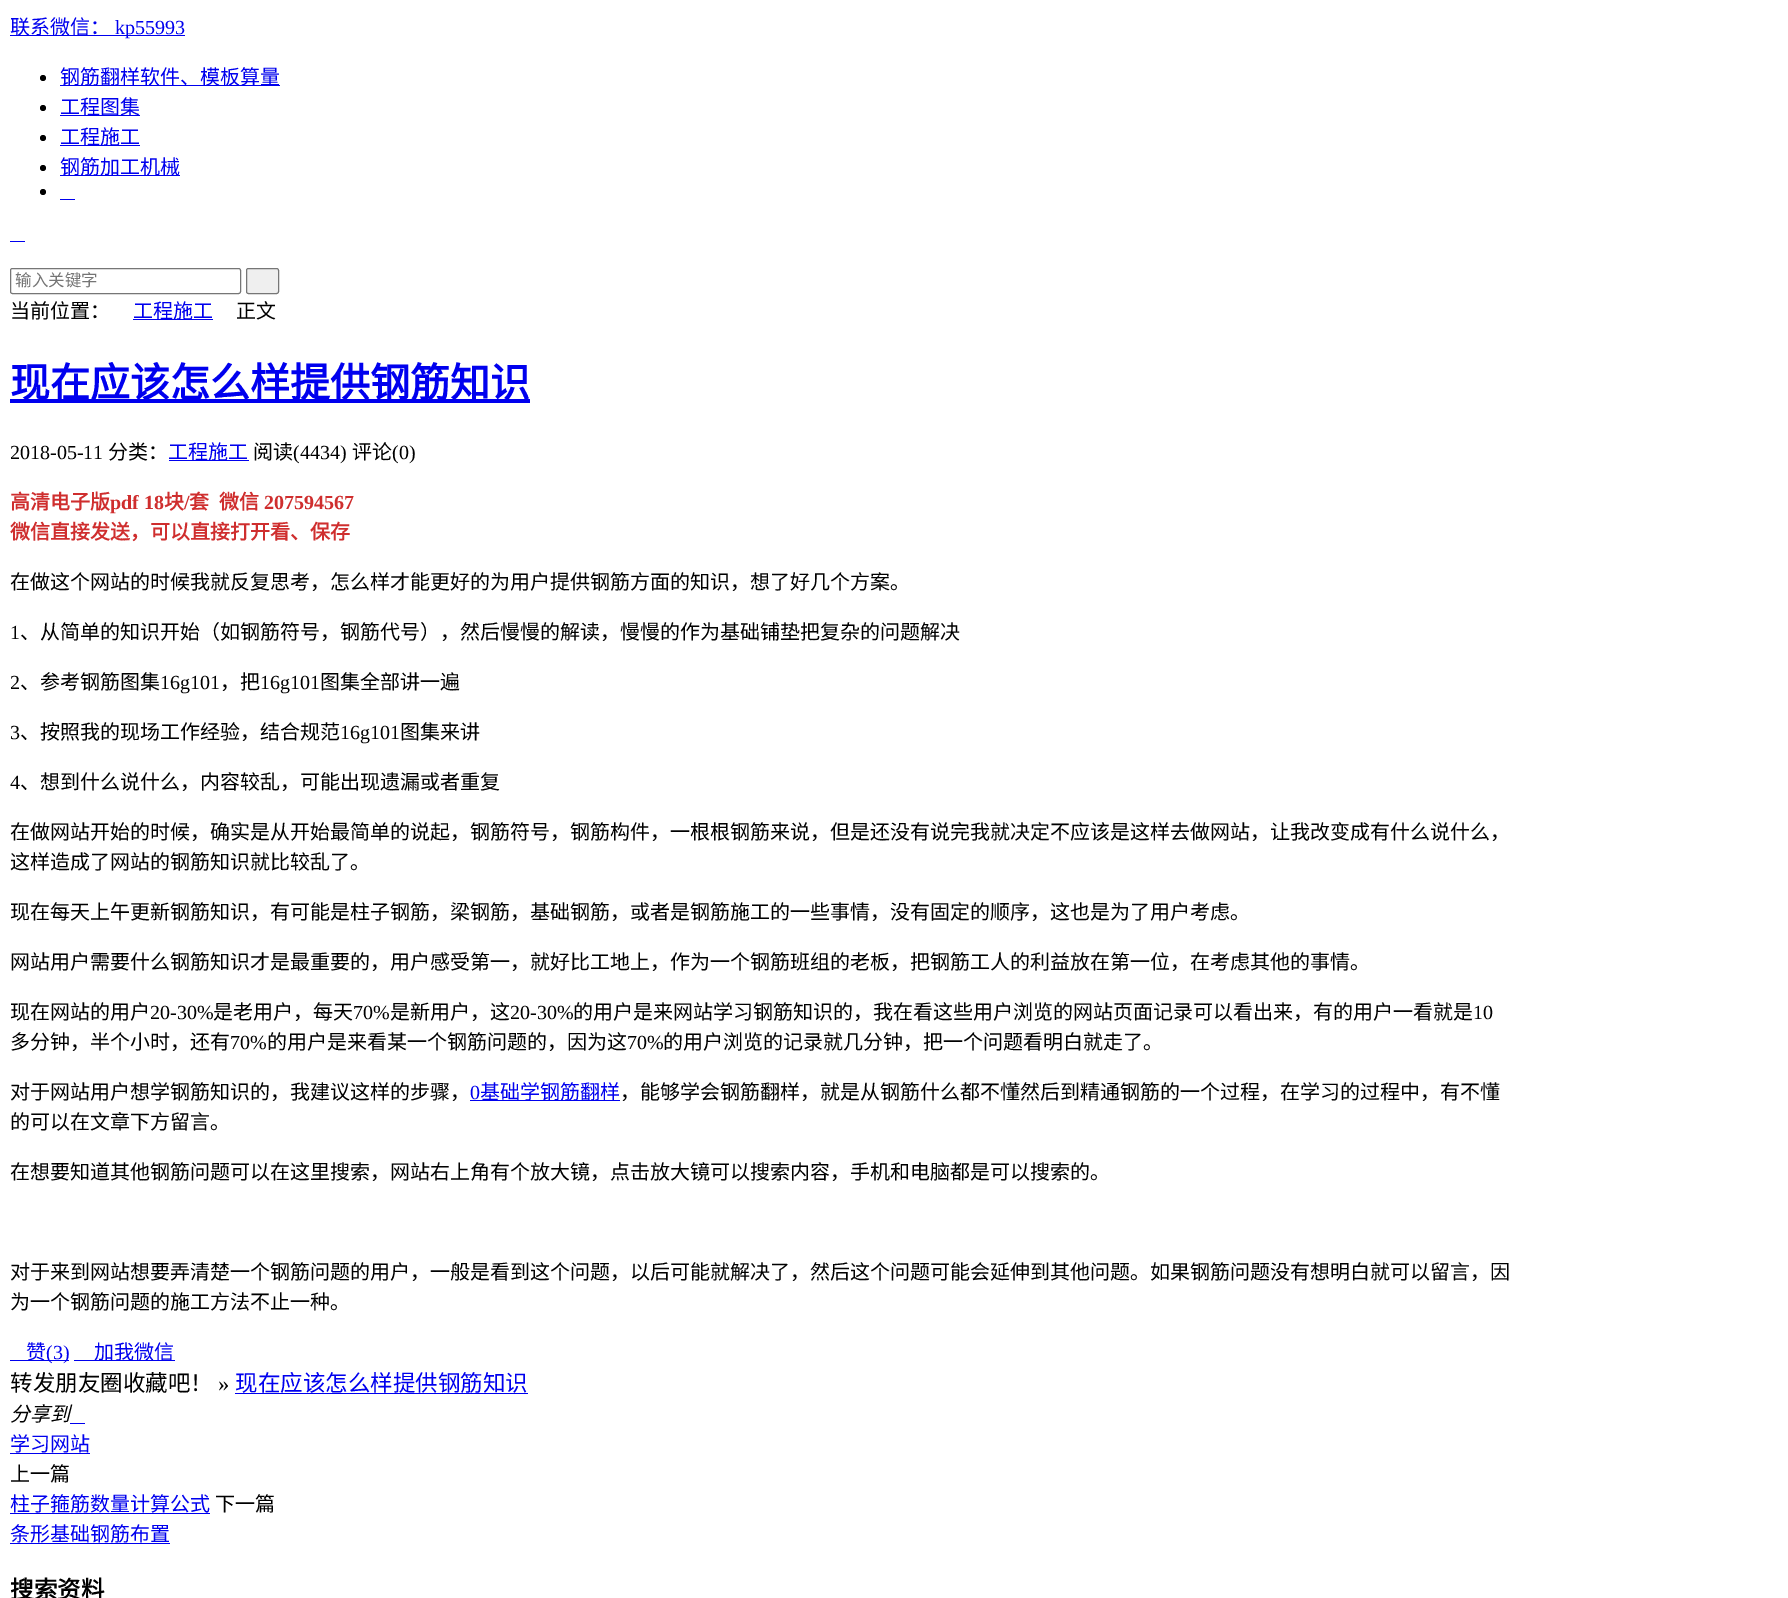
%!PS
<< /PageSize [1788 1598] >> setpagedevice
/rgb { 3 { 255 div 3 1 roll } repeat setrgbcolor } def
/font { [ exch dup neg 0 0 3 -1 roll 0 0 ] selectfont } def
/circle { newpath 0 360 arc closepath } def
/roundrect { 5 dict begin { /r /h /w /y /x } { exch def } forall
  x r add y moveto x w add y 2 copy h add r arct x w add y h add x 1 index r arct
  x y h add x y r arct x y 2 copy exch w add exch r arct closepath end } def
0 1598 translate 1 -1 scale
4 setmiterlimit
255 255 255 rgb
0 0 1788 1598 rectfill
0 0 238 rgb
10 35 175 1 rectfill
0 0 0 rgb
43 78 3 circle fill
0 0 238 rgb
60 85 220 1 rectfill
0 0 0 rgb
43 108 3 circle fill
0 0 238 rgb
60 115 80 1 rectfill
0 0 0 rgb
43 138 3 circle fill
0 0 238 rgb
60 145 80 1 rectfill
0 0 0 rgb
43 168 3 circle fill
0 0 238 rgb
60 175 120 1 rectfill
0 0 0 rgb
43 192 3 circle fill
0 0 238 rgb
60 199 15 1 rectfill
10 241 15 1 rectfill
118 118 118 rgb
10.5 268.5 230 25 2 roundrect stroke
239 239 239 rgb
246.5 268.5 32 25 2 roundrect gsave fill grestore
118 118 118 rgb
stroke
[
  [133 319 80 1 0 0 238]
  [10 399 520 4 0 0 238]
  [169 460 80 1 0 0 238]
  [470 1100 150 1 0 0 238]
  [10 1360 59 1 0 0 238]
  [74 1360 101 1 0 0 238]
  [235 1393 293 1 0 0 238]
  [70 1423 15 1 0 0 238]
  [10 1453 80 1 0 0 238]
  [10 1513 200 1 0 0 238]
  [10 1543 160 1 0 0 238]
] { aload pop rgb rectfill } forall
/NotoSansCJKSC-Regular 20 font
10 34 moveto (联系微信：) show
/LiberationSerif-Regular 20 font
115 34 moveto (kp55993) show
/NotoSansCJKSC-Regular 20 font
[
  [(钢筋翻样软件、模板算量) 60 84]
  [(工程图集) 60 114]
  [(工程施工) 60 144]
  [(钢筋加工机械) 60 174]
] { aload pop moveto show } forall
/NotoSansCJKSC-Regular 16.5 font
117 117 117 rgb
15 286 moveto (输入关键字) show
/NotoSansCJKSC-Regular 20 font
0 0 0 rgb
10 318 moveto (当前位置：) show
0 0 238 rgb
133 318 moveto (工程施工) show
0 0 0 rgb
236 318 moveto (正文) show
/NotoSansCJKSC-Bold 40 font
0 0 238 rgb
10 397 moveto (现在应该怎么样提供钢筋知识) show
/LiberationSerif-Regular 20 font
0 0 0 rgb
10 459 moveto (2018-05-11) show
/NotoSansCJKSC-Regular 20 font
108 459 moveto (分类：) show
0 0 238 rgb
168 459 moveto (工程施工) show
0 0 0 rgb
253 459 moveto (阅读) show
/LiberationSerif-Regular 20 font
293 459 moveto (\(4434\)) show
/NotoSansCJKSC-Regular 20 font
352 459 moveto (评论) show
/LiberationSerif-Regular 20 font
392 459 moveto (\(0\)) show
/NotoSansCJKSC-Bold 20 font
207 46 46 rgb
10 509 moveto (高清电子版) show
/LiberationSerif-Bold 20 font
110 509 moveto (pdf 18) show
/NotoSansCJKSC-Bold 20 font
164 509 moveto (块) show
/LiberationSerif-Bold 20 font
184 509 moveto (/) show
/NotoSansCJKSC-Bold 20 font
189 509 moveto (套) show
219 509 moveto (微信) show
/LiberationSerif-Bold 20 font
264 509 moveto (207594567) show
/NotoSansCJKSC-Bold 20 font
10 539 moveto (微信直接发送，可以直接打开看、保存) show
/NotoSansCJKSC-Regular 20 font
0 0 0 rgb
10 589 moveto (在做这个网站的时候我就反复思考，怎么样才能更好的为用户提供钢筋方面的知识，想了好几个方案。) show
/LiberationSerif-Regular 20 font
10 639 moveto (1) show
/NotoSansCJKSC-Regular 20 font
20 639 moveto (、从简单的知识开始（如钢筋符号，钢筋代号），然后慢慢的解读，慢慢的作为基础铺垫把复杂的问题解决) show
/LiberationSerif-Regular 20 font
10 689 moveto (2) show
/NotoSansCJKSC-Regular 20 font
20 689 moveto (、参考钢筋图集) show
/LiberationSerif-Regular 20 font
160 689 moveto (16g101) show
/NotoSansCJKSC-Regular 20 font
220 689 moveto (，把) show
/LiberationSerif-Regular 20 font
260 689 moveto (16g101) show
/NotoSansCJKSC-Regular 20 font
320 689 moveto (图集全部讲一遍) show
/LiberationSerif-Regular 20 font
10 739 moveto (3) show
/NotoSansCJKSC-Regular 20 font
20 739 moveto (、按照我的现场工作经验，结合规范) show
/LiberationSerif-Regular 20 font
340 739 moveto (16g101) show
/NotoSansCJKSC-Regular 20 font
400 739 moveto (图集来讲) show
/LiberationSerif-Regular 20 font
10 789 moveto (4) show
/NotoSansCJKSC-Regular 20 font
[
  [(、想到什么说什么，内容较乱，可能出现遗漏或者重复) 20 789]
  [(在做网站开始的时候，确实是从开始最简单的说起，钢筋符号，钢筋构件，一根根钢筋来说，但是还没有说完我就决定不应该是这样去做网站，让我改变成有什么说什么，) 10 839]
  [(这样造成了网站的钢筋知识就比较乱了。) 10 869]
  [(现在每天上午更新钢筋知识，有可能是柱子钢筋，梁钢筋，基础钢筋，或者是钢筋施工的一些事情，没有固定的顺序，这也是为了用户考虑。) 10 919]
  [(网站用户需要什么钢筋知识才是最重要的，用户感受第一，就好比工地上，作为一个钢筋班组的老板，把钢筋工人的利益放在第一位，在考虑其他的事情。) 10 969]
  [(现在网站的用户) 10 1019]
] { aload pop moveto show } forall
/LiberationSerif-Regular 20 font
150 1019 moveto (20-30%) show
/NotoSansCJKSC-Regular 20 font
213 1019 moveto (是老用户，每天) show
/LiberationSerif-Regular 20 font
353 1019 moveto (70%) show
/NotoSansCJKSC-Regular 20 font
390 1019 moveto (是新用户，这) show
/LiberationSerif-Regular 20 font
510 1019 moveto (20-30%) show
/NotoSansCJKSC-Regular 20 font
573 1019 moveto (的用户是来网站学习钢筋知识的，我在看这些用户浏览的网站页面记录可以看出来，有的用户一看就是) show
/LiberationSerif-Regular 20 font
1473 1019 moveto (10) show
/NotoSansCJKSC-Regular 20 font
10 1049 moveto (多分钟，半个小时，还有) show
/LiberationSerif-Regular 20 font
230 1049 moveto (70%) show
/NotoSansCJKSC-Regular 20 font
267 1049 moveto (的用户是来看某一个钢筋问题的，因为这) show
/LiberationSerif-Regular 20 font
627 1049 moveto (70%) show
/NotoSansCJKSC-Regular 20 font
663 1049 moveto (的用户浏览的记录就几分钟，把一个问题看明白就走了。) show
10 1099 moveto (对于网站用户想学钢筋知识的，我建议这样的步骤，) show
/LiberationSerif-Regular 20 font
0 0 238 rgb
470 1099 moveto (0) show
/NotoSansCJKSC-Regular 20 font
480 1099 moveto (基础学钢筋翻样) show
0 0 0 rgb
[
  [(，能够学会钢筋翻样，就是从钢筋什么都不懂然后到精通钢筋的一个过程，在学习的过程中，有不懂) 620 1099]
  [(的可以在文章下方留言。) 10 1129]
  [(在想要知道其他钢筋问题可以在这里搜索，网站右上角有个放大镜，点击放大镜可以搜索内容，手机和电脑都是可以搜索的。) 10 1179]
  [(对于来到网站想要弄清楚一个钢筋问题的用户，一般是看到这个问题，以后可能就解决了，然后这个问题可能会延伸到其他问题。如果钢筋问题没有想明白就可以留言，因) 10 1279]
  [(为一个钢筋问题的施工方法不止一种。) 10 1309]
] { aload pop moveto show } forall
0 0 238 rgb
26 1359 moveto (赞) show
/LiberationSerif-Regular 20 font
46 1359 moveto (\(3\)) show
/NotoSansCJKSC-Regular 20 font
94 1359 moveto (加我微信) show
/NotoSansCJKSC-Regular 22.5 font
0 0 0 rgb
10 1391 moveto (转发朋友圈收藏吧！) show
/LiberationSerif-Regular 22.5 font
218 1391 moveto (») show
/NotoSansCJKSC-Regular 22.5 font
0 0 238 rgb
235 1391 moveto (现在应该怎么样提供钢筋知识) show
/NotoSansCJKSC-Italic 20 font
0 0 0 rgb
10 1421 moveto (分享到) show
/NotoSansCJKSC-Regular 20 font
0 0 238 rgb
10 1451 moveto (学习网站) show
0 0 0 rgb
10 1481 moveto (上一篇) show
0 0 238 rgb
10 1511 moveto (柱子箍筋数量计算公式) show
0 0 0 rgb
215 1511 moveto (下一篇) show
0 0 238 rgb
10 1541 moveto (条形基础钢筋布置) show
/NotoSansCJKSC-Bold 23.5 font
0 0 0 rgb
10 1598 moveto (搜索资料) show
showpage
